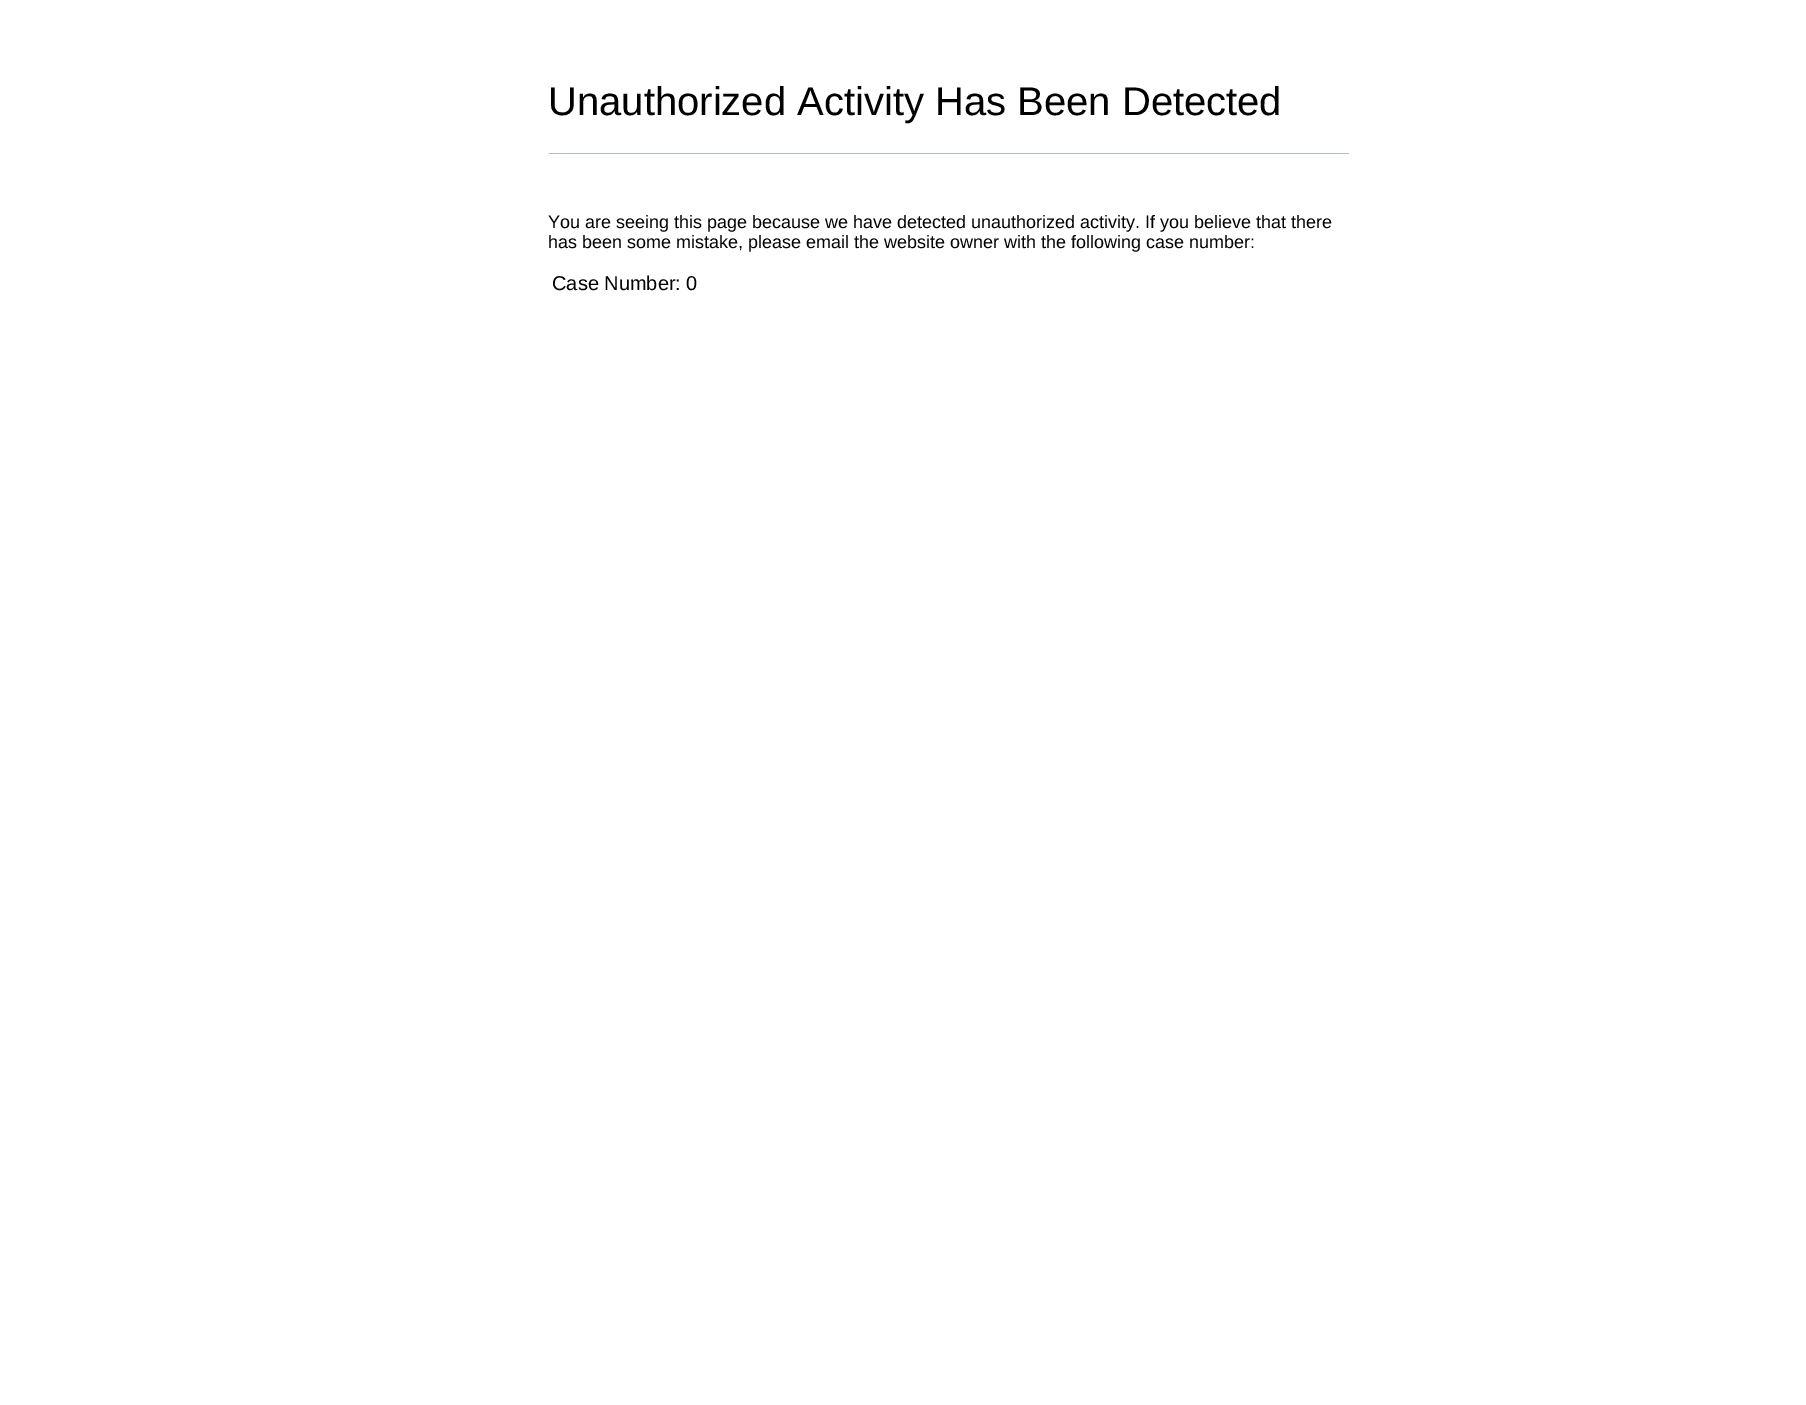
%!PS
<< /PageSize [1806 1405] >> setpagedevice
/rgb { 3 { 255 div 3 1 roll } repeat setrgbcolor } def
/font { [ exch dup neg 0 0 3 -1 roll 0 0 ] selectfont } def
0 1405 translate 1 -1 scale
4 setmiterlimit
255 255 255 rgb
0 0 1806 1405 rectfill
182 188 198 rgb
549 153 800 1 rectfill
/LiberationSans-Regular 40 font
0 0 0 rgb
548 115 moveto (Unauthorized Activity Has Been Detected) show
/LiberationSans-Regular 18 font
548 228 moveto (You are seeing this page because we have detected unauthorized activity. If you believe that there) show
548 248 moveto (has been some mistake, please email the website owner with the following case number:) show
/LiberationSans-Regular 20 font
552 290 moveto (Case Number:) show
686 290 moveto (0) show
showpage
